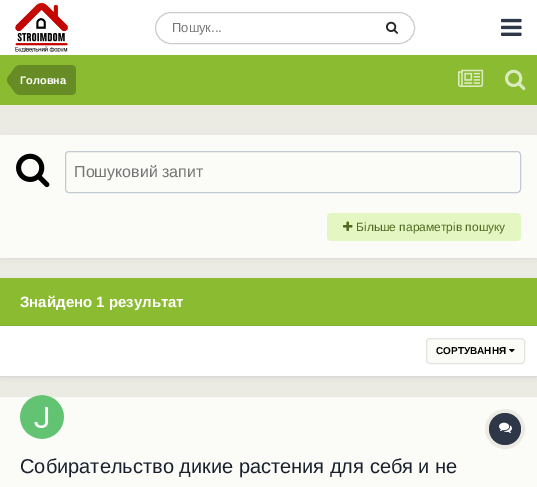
%!PS
<< /PageSize [537 487] /PageUsesTransparency true >> setpagedevice
/rgb { 3 { 255 div 3 1 roll } repeat setrgbcolor } def
/font { [ exch dup neg 0 0 3 -1 roll 0 0 ] selectfont } def
/alpha { dup .setfillconstantalpha .setstrokeconstantalpha } def
/circle { newpath 0 360 arc closepath } def
/roundrect { 5 dict begin { /r /h /w /y /x } { exch def } forall
  x r add y moveto x w add y 2 copy h add r arct x w add y h add x 1 index r arct
  x y h add x y r arct x y 2 copy exch w add exch r arct closepath end } def
/shadow { 12 dict begin { /a /b /q /h /w /y /x } { exch def } forall gsave /was 0 def
  9 -2 -9 { dup b mul 4 div /e exch def 1 sub .425 mul 2.718 exch exp 1 add a .99 .min exch div /now exch def
    1 1 now sub 1 was sub div sub alpha /was now def
    w h .min e 2 mul add 0 gt { x e sub y e sub w e 2 mul add h e 2 mul add
      q e add b .6 mul add w h .min 2 div e add .min 0 .max roundrect fill } if } for grestore end } def
/picture { 5 dict begin { /h /w /y /x /name } { exch def } forall
  gsave x y translate w h scale
  w h 8 [w 0 0 h 0 0] name (r) file false 3 colorimage grestore end } def
0 .pushpdf14devicefilter
0 487 translate 1 -1 scale
4 setmiterlimit
236 235 227 rgb
0 0 537 487 rectfill
255 255 255 rgb
0 0 537 55 rectfill
(img/1.rgb) 15 3 53 49 picture
204 204 204 rgb
155.5 12.5 259 31 15.5 roundrect stroke
(img/2.rgb) 386 21 12 13 picture
(img/3.rgb) 501 18 21 18 picture
138 187 49 rgb
0 55 537 50 rectfill
104 140 37 rgb
20 65 moveto 71 65 lineto 74 65 76 67 76 70 curveto 76 90 lineto 76 93 74 95 71 95 curveto 20 95 lineto closepath fill
20 80 moveto 20 95 lineto 15.5 95 13.5 90.5 11 87 curveto 9.5 85 7 83 7 80 curveto closepath 20 80 moveto 7 80 lineto 7 77 9.5 75 11 73 curveto 13.5 69.5 15.5 65 20 65 curveto closepath fill
(img/4.rgb) 458 69 26 18 picture
(img/5.rgb) 505 69 21 22 picture
45 55 72 rgb
1 138 535 121 0 2 0.1 shadow
251 251 248 rgb
0 135 537 123 rectfill
(img/6.rgb) 16 153 34 35 picture
196 202 209 rgb
65.5 151.5 455 41 3.5 roundrect stroke
228 247 194 rgb
327 213 194 28 4 roundrect fill
(img/7.rgb) 343 221 10 10 picture
45 55 72 rgb
1 281 535 97 0 2 0.1 shadow
[
  [0 278 537 47 138 187 49]
  [0 325 537 1 134 178 64]
  [0 326 537 50 255 255 255]
  [0 376 537 1 217 217 217]
] { aload pop rgb rectfill } forall
251 251 248 rgb
426 338 99 26 4 roundrect fill
(img/8.rgb) 509 349 6 4 picture
226 226 223 rgb
426.5 338.5 98 25 3.5 roundrect stroke
251 251 248 rgb
0 397 537 90 rectfill
42 417 22 circle fill
(img/9.rgb) 20 395 44 44 picture
236 235 227 rgb
4 setlinewidth
505 429 18 circle stroke
45 55 72 rgb
505 429 16 circle fill
(img/10.rgb) 499 422 13 11 picture
/LiberationSans-Regular 13 font
117 117 117 rgb
172 32 moveto (Пошук...) show
/LiberationSans-Bold 11 font
255 255 255 rgb
20 84 moveto (Головна) show
/LiberationSans-Regular 16 font
117 117 117 rgb
74 177 moveto (Пошуковий запит) show
/LiberationSans-Regular 12 font
81 106 34 rgb
356 231 moveto (Більше параметрів пошуку) show
/LiberationSans-Bold 15 font
255 255 255 rgb
20 307 moveto (Знайдено 1 результат) show
/LiberationSans-Bold 10 font
0 0 0 rgb
436 354 moveto (СОРТУВАННЯ) show
/LiberationSans-Regular 20 font
26 32 44 rgb
20 473 moveto (Собирательство дикие растения для себя и не) show
.poppdf14devicefilter showpage
